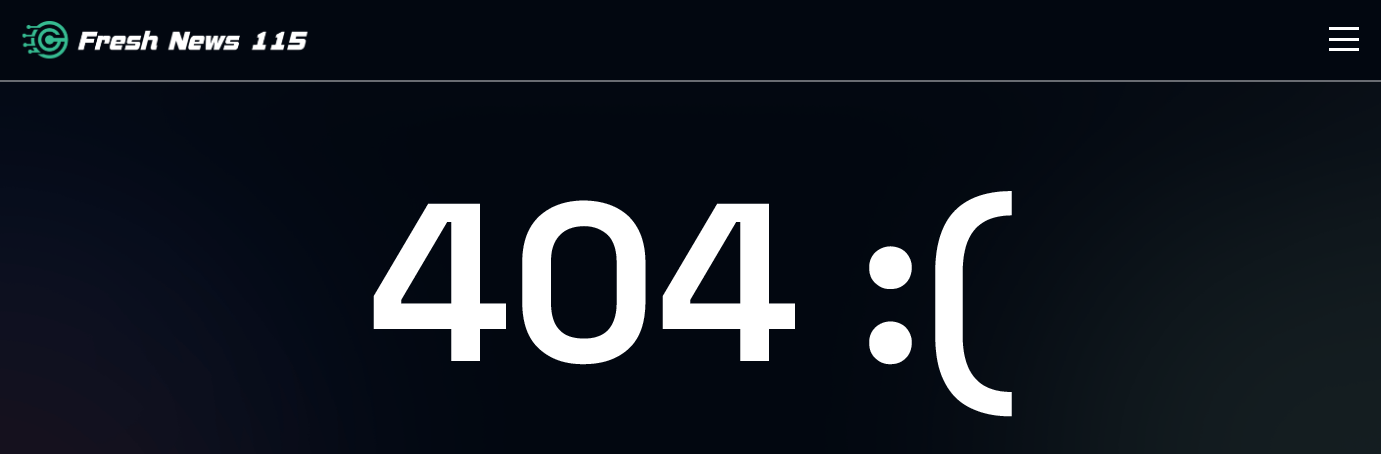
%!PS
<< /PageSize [1381 454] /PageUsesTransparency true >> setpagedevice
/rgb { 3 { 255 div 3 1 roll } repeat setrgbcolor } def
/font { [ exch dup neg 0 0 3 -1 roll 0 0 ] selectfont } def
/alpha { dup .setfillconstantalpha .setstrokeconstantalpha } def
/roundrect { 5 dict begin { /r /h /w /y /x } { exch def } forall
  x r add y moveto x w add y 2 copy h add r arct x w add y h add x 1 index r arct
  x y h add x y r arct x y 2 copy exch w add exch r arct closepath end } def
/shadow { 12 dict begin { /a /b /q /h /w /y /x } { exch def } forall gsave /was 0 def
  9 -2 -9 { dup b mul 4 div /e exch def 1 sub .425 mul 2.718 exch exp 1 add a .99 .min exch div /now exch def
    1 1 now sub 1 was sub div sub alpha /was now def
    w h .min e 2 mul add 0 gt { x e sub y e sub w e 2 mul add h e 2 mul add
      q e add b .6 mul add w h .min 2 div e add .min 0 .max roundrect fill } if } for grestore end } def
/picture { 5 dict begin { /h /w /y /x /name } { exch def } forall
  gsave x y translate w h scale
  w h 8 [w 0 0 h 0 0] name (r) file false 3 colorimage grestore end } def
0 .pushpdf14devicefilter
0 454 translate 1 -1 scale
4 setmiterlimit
255 255 255 rgb
0 0 1381 454 rectfill
(img/1.rgb) 0 82 1381 372 picture
0 0 0 rgb
0 5 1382 81 0 5 0.1 shadow
2 7 16 rgb
0 0 1381 80 rectfill
105 108 114 rgb
0 80 1381 2 rectfill
(img/2.rgb) 22 21 286 38 picture
[
  [1329 38 30 3 255 255 255]
  [1329 27 30 3 255 255 255]
  [1329 48 30 3 255 255 255]
] { aload pop rgb rectfill } forall
/SpaceGrotesk-Bold 225 font
368 361 moveto (404 :\() show
.poppdf14devicefilter showpage
